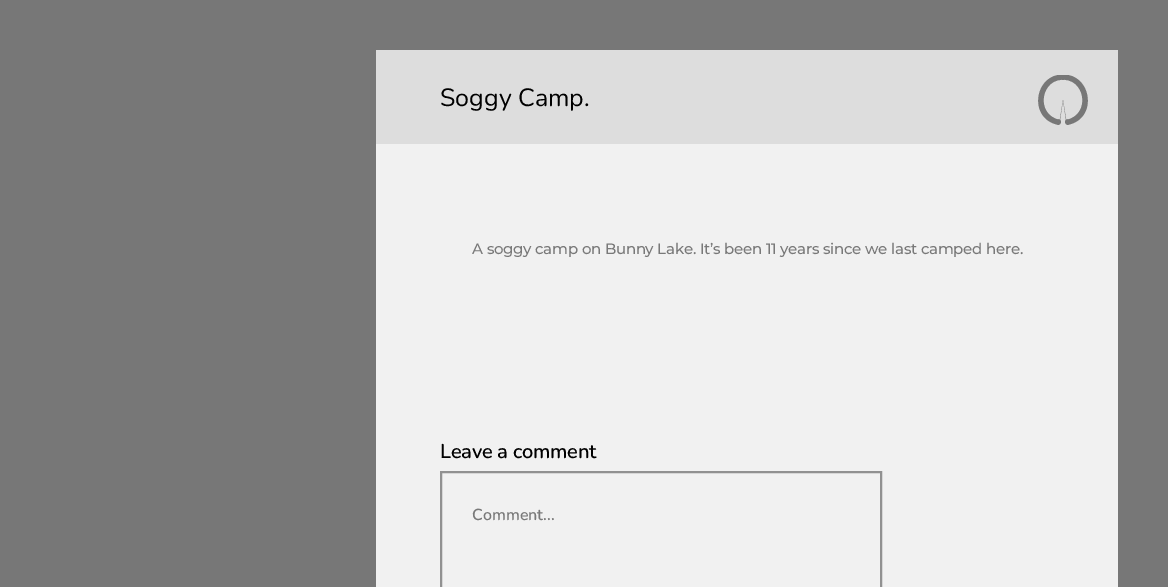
%!PS
<< /PageSize [1168 587] >> setpagedevice
/rgb { 3 { 255 div 3 1 roll } repeat setrgbcolor } def
/font { [ exch dup neg 0 0 3 -1 roll 0 0 ] selectfont } def
0 587 translate 1 -1 scale
4 setmiterlimit
119 119 119 rgb
0 0 1168 587 rectfill
241 241 241 rgb
376 144 742 443 rectfill
221 221 221 rgb
376 50 742 94 rectfill
145 145 145 rgb
2 setlinewidth
441 472 440 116 rectstroke
gsave
1038 75 25 50 rectclip
119 119 119 rgb
1067 75 moveto 1059 125 lineto 1026 119 1035 70 1067 75 curveto closepath 1066 80 moveto 1060 120 lineto 1034 115 1041 76 1066 80 curveto closepath eofill
grestore
119 119 119 rgb
1059 119.5 moveto 1062 120 1061.5 125 1058 124.5 curveto 1055 124 1056 119 1059 119.5 curveto closepath fill
gsave
1063 75 25 50 rectclip
1059 75 moveto 1091 70 1100 119 1067 125 curveto closepath 1060 80 moveto 1085 76 1092 115 1066 120 curveto closepath eofill
grestore
1067 119.5 moveto 1070 119 1071 124 1068 124.5 curveto 1064.5 125 1064 120 1067 119.5 curveto closepath fill
/Nunito-Regular 25 font
0 0 0 rgb
440 106 moveto (Soggy Camp.) show
/Montserrat-Thin 15 font
121 121 121 rgb
472 254 moveto -0.25 0 (A soggy camp on Bunny Lake. It’s been 11 years since we last camped here.) ashow
/Nunito-SemiBold 20 font
0 0 0 rgb
440 458 moveto -0.25 0 (Leave a comment) ashow
/Nunito-SemiBold 16 font
121 121 121 rgb
472 520 moveto (Comment...) show
showpage
